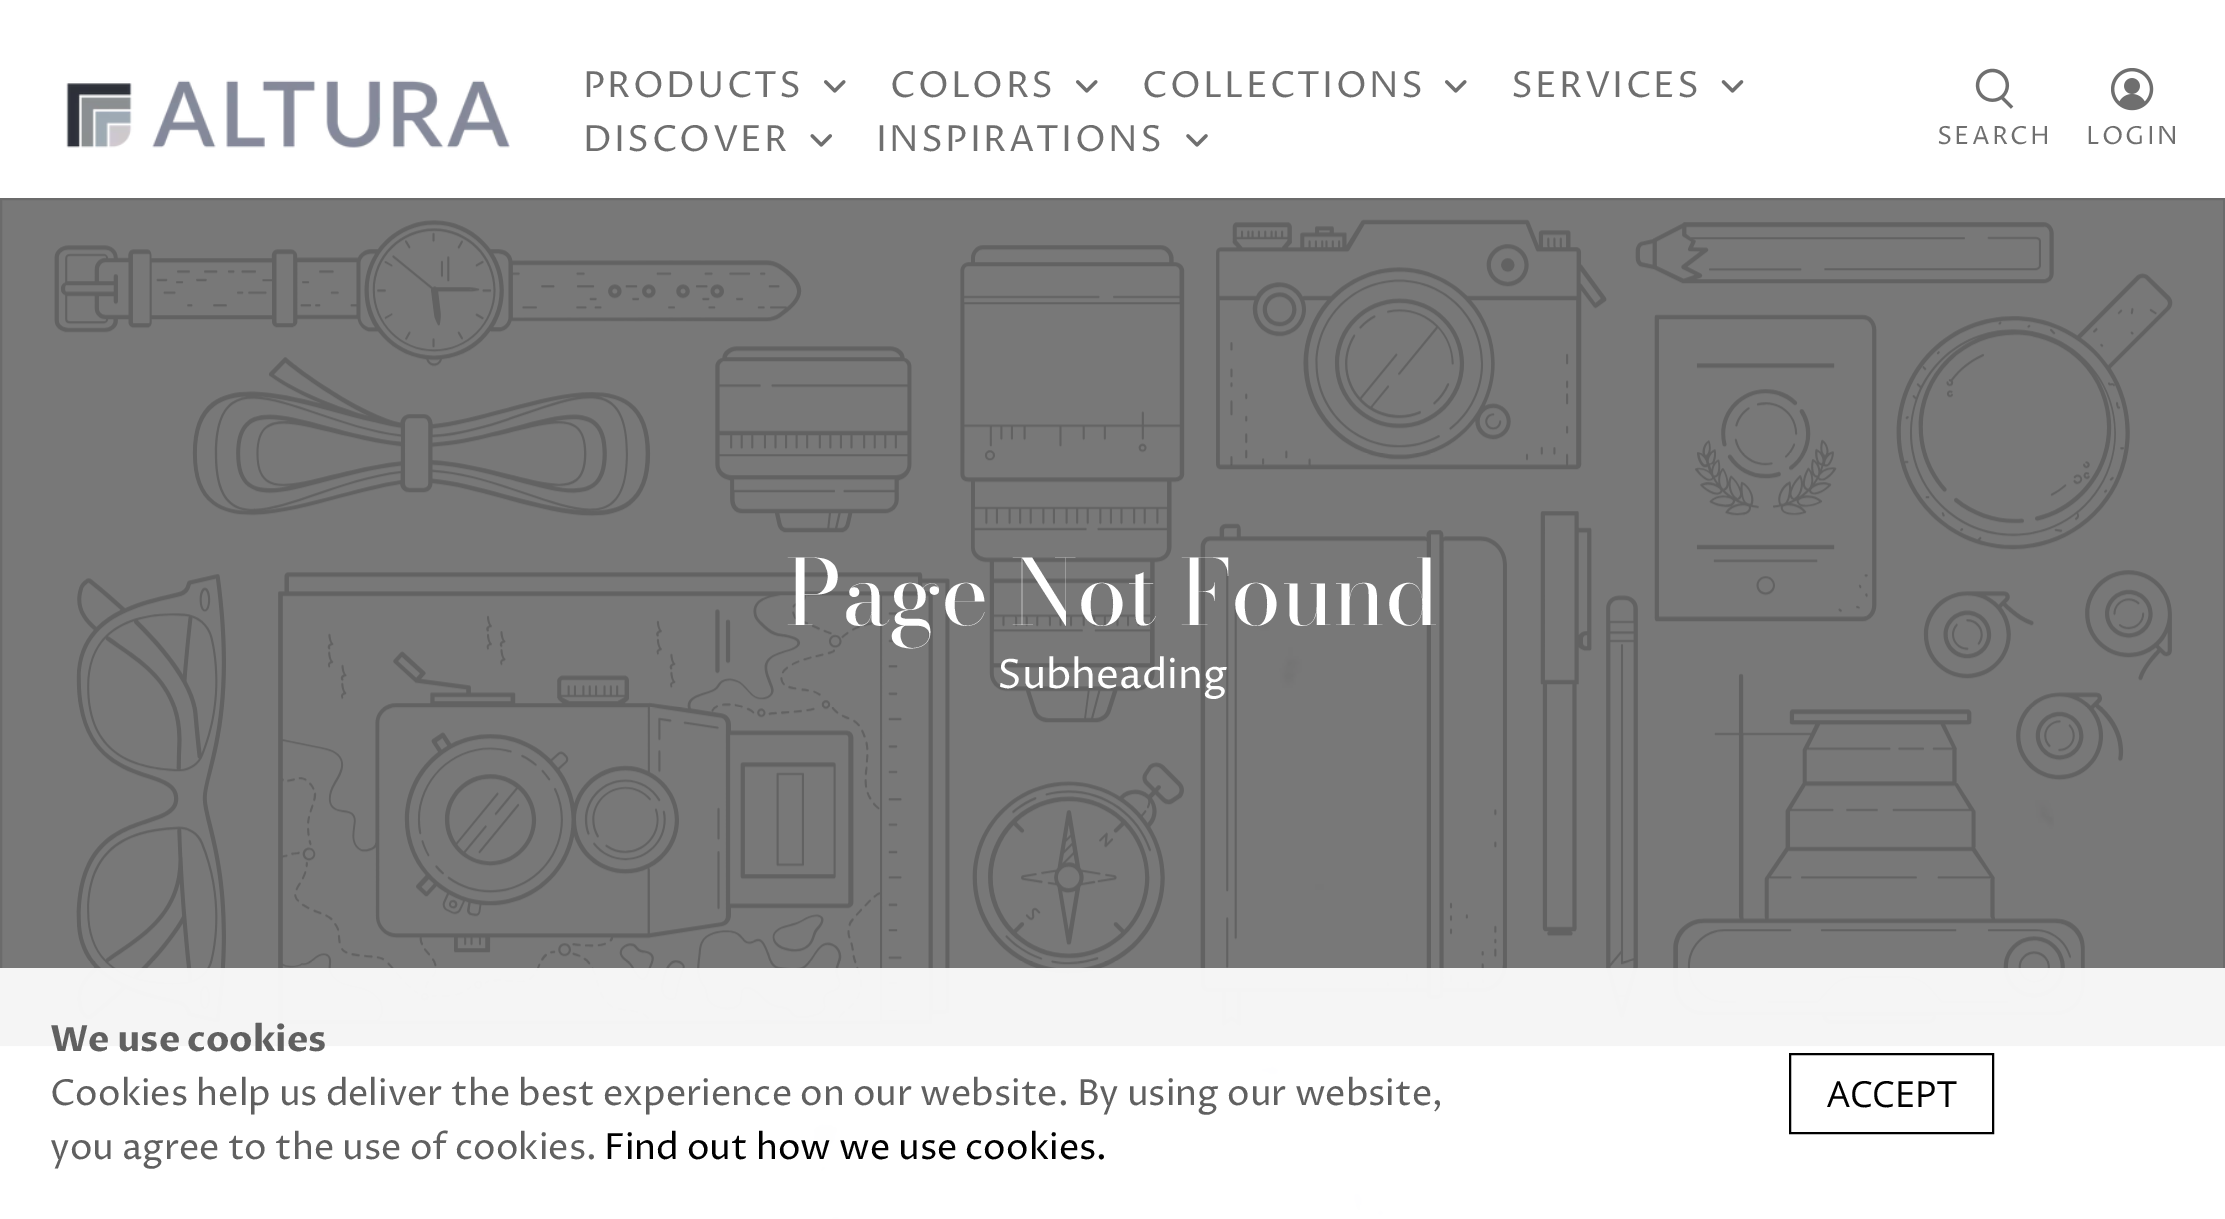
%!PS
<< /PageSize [2225 1219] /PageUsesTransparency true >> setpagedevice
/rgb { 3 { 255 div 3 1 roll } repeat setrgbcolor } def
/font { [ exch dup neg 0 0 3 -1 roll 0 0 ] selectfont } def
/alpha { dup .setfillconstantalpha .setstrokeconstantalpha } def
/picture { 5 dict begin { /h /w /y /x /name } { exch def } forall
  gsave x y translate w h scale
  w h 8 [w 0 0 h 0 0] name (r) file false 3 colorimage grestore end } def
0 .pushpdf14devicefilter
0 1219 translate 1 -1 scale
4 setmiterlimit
255 255 255 rgb
0 0 2225 1219 rectfill
(img/1.rgb) 744 624 1310 595 picture
(img/2.rgb) 66 80 444 68 picture
(img/3.rgb) 824 80 22 13 picture
(img/3.rgb) 1076 80 22 13 picture
(img/3.rgb) 1445 80 22 13 picture
(img/4.rgb) 1721 80 23 13 picture
(img/5.rgb) 810 134 22 13 picture
(img/6.rgb) 1186 134 22 13 picture
(img/7.rgb) 1975 68 39 41 picture
(img/8.rgb) 2111 68 43 43 picture
0.1 alpha
111 111 111 rgb
1 199 moveto 2224 199 lineto 2224 1045 lineto 1 1045 lineto closepath fill
1 alpha
215 215 215 rgb
2 setlinewidth
1 199 moveto 2224 199 lineto 2224 1045 lineto 1 1045 lineto closepath stroke
(img/9.rgb) 54 219 2119 808 picture
0.5 alpha
0 0 0 rgb
0 198 2225 848 rectfill
0.93 alpha
255 255 255 rgb
0 968 2225 251 rectfill
1 alpha
0 0 0 rgb
1790 1054 203 79 rectstroke
/ProzaLibre-Regular 36 font
111 111 111 rgb
583 97 moveto 2.25 0 (PRODUCTS) ashow
890 97 moveto 2.25 0 (COLORS) ashow
1142 97 moveto 2.25 0 (COLLECTIONS) ashow
1511 97 moveto 2.25 0 (SERVICES) ashow
583 151 moveto 2.25 0 (DISCOVER) ashow
876 151 moveto 2.25 0 (INSPIRATIONS) ashow
/ProzaLibre-Regular 25 font
1937 144 moveto 2.25 0 (SEARCH) ashow
2086 144 moveto 2.25 0 (LOGIN) ashow
/BodoniModa-Regular 90 font
255 255 255 rgb
786 625 moveto (Page Not Found) show
/ProzaLibre-Regular 40.5 font
997 688 moveto (Subheading) show
/ProzaLibre-Bold 36 font
96 96 96 rgb
50 1051 moveto (We use cookies) show
/ProzaLibre-Regular 36 font
50 1105 moveto (Cookies help us deliver the best experience on our website. By using our website,) show
50 1159 moveto (you agree to the use of cookies.) show
0 0 0 rgb
604 1159 moveto (Find out how we use cookies.) show
/OpenSans-Regular 36 font
1827 1107 moveto (ACCEPT) show
.poppdf14devicefilter showpage
